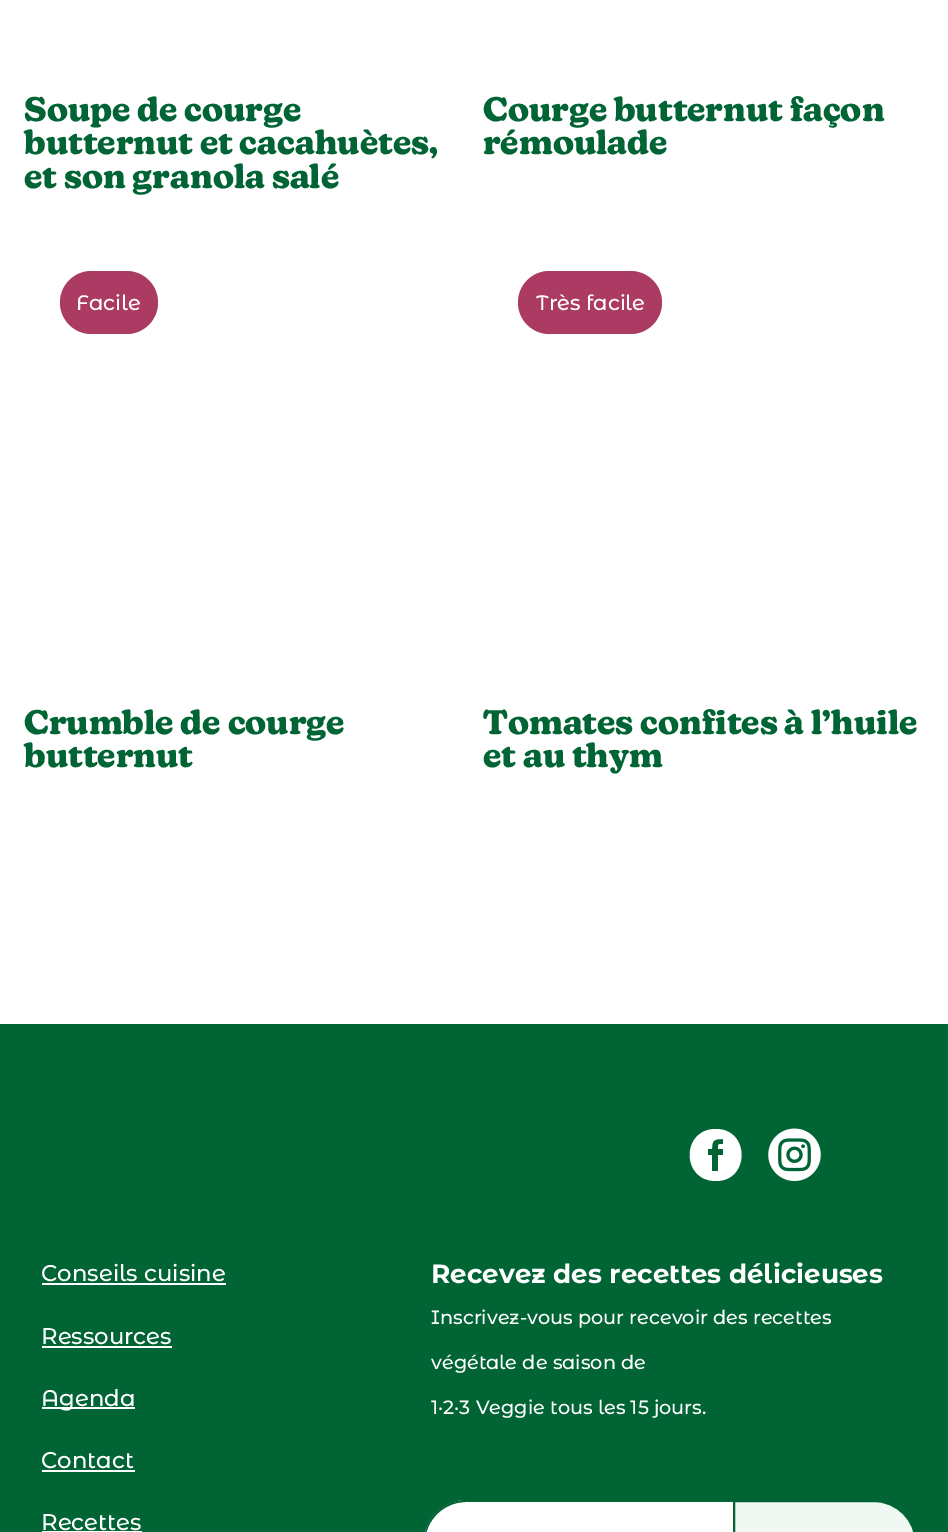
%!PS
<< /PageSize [948 1532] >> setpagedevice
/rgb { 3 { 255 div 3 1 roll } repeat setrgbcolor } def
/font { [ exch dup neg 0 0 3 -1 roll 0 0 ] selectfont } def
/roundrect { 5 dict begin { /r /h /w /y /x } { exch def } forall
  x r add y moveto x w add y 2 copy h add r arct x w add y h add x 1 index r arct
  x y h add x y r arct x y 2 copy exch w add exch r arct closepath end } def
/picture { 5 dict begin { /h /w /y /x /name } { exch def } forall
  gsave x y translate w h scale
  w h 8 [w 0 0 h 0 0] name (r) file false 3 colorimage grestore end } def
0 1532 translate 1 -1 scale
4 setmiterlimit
255 255 255 rgb
0 0 948 1532 rectfill
171 59 99 rgb
60 271 98 63 31.5 roundrect fill
518 271 144 63 31.5 roundrect fill
0 100 53 rgb
0 1024 948 508 rectfill
255 255 255 rgb
716 1129 moveto 681 1129 681 1181 716 1181 curveto 750 1181 750 1129 716 1129 curveto closepath 723 1155 moveto 718 1155 lineto 718 1171 lineto 712 1171 lineto 712 1155 lineto 708 1155 lineto 708 1149 lineto 712 1149 lineto 712 1140 714 1139 723 1139 curveto 723 1144 lineto 718 1144 718 1144 718 1149 curveto 723 1149 lineto closepath fill
(img/1.rgb) 768 1128 53 53 picture
[
  [42 1283 184 2 255 255 255]
  [42 1346 130 2 255 255 255]
  [42 1407 93 2 255 255 255]
  [42 1470 93 2 255 255 255]
  [42 1531 100 1 255 255 255]
] { aload pop rgb rectfill } forall
467 1500 moveto 733 1500 lineto 733 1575 lineto 467 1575 lineto 443.5 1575 424 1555.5 424 1532 curveto 424 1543 lineto 424 1519.5 443.5 1500 467 1500 curveto closepath fill
0 100 53 rgb
466 1500 moveto 733 1500 lineto 733 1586 lineto 466 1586 lineto 443 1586 424 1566 424 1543 curveto 424 1519 443 1500 466 1500 curveto closepath 466 1502 moveto 733 1502 lineto 733 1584 lineto 466 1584 lineto 444 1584 425 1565 425 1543 curveto 425 1520 444 1502 466 1502 curveto closepath eofill
239 248 242 rgb
734 1501 moveto 874 1501 lineto 897 1501 916 1520 916 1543 curveto 916 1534 lineto 916 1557 897 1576 874 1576 curveto 734 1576 lineto closepath gsave fill grestore
0 100 53 rgb
2 setlinewidth
stroke
/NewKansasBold-Bold 33.25 font
[
  [(Soupe de courge) 24 121]
  [(butternut et cacahuètes,) 24 154]
  [(et son granola salé) 24 188]
  [(Courge butternut façon) 483 121]
  [(rémoulade) 483 154]
] { aload pop moveto show } forall
/MontserratAlternates-Medium 21 font
255 255 255 rgb
76 310 moveto (Facile) show
/NewKansasBold-Bold 33.25 font
0 100 53 rgb
24 734 moveto (Crumble de courge) show
24 767 moveto (butternut) show
/MontserratAlternates-Medium 21 font
255 255 255 rgb
536 310 moveto (Très facile) show
/NewKansasBold-Bold 33.25 font
0 100 53 rgb
483 734 moveto (Tomates confites à l’huile) show
483 767 moveto (et au thym) show
/MontserratAlternates-Medium 22.75 font
255 255 255 rgb
[
  [(Conseils cuisine) 41 1281]
  [(Ressources) 41 1344]
  [(Agenda) 41 1406]
  [(Contact) 41 1468]
  [(Recettes) 41 1530]
] { aload pop moveto show } forall
/MontserratAlternates-Bold 26.25 font
431 1283 moveto (Recevez des recettes délicieuses) show
/MontserratAlternates-Medium 19.25 font
[
  [(Inscrivez-vous pour recevoir des recettes) 431 1324]
  [(végétale de saison de) 431 1369]
  [(1·2·3 Veggie tous les 15 jours.) 431 1414]
] { aload pop moveto show } forall
showpage
